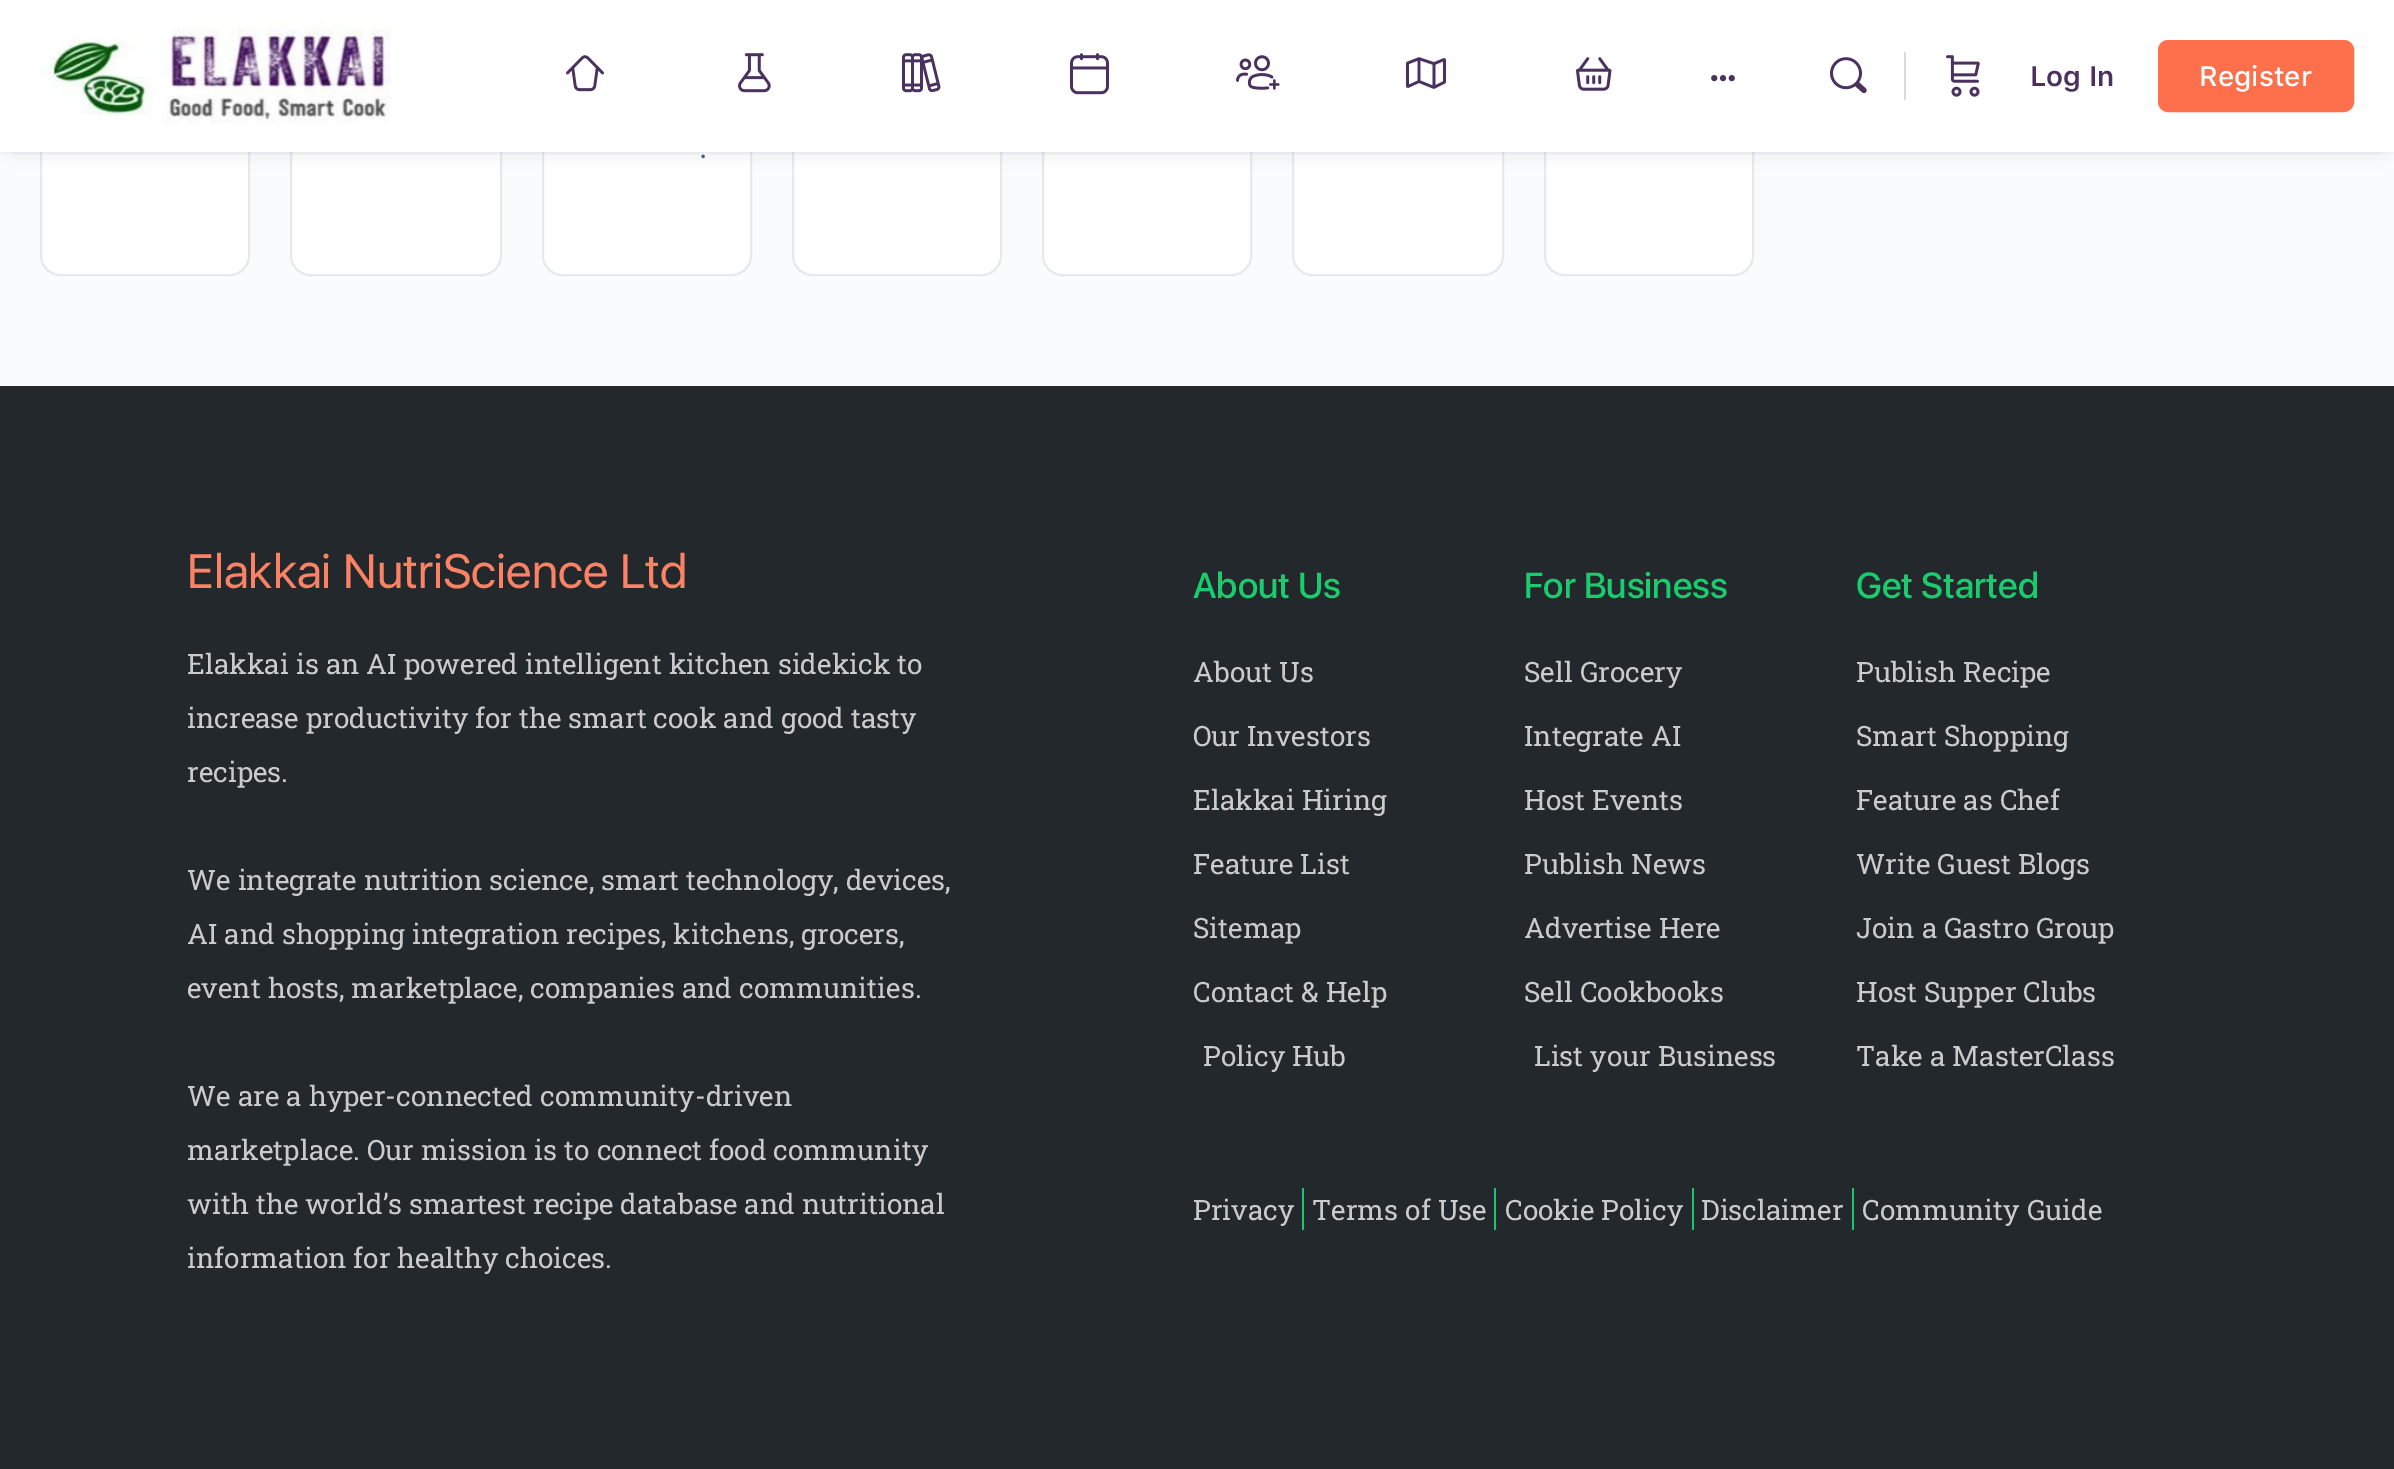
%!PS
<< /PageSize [2394 1469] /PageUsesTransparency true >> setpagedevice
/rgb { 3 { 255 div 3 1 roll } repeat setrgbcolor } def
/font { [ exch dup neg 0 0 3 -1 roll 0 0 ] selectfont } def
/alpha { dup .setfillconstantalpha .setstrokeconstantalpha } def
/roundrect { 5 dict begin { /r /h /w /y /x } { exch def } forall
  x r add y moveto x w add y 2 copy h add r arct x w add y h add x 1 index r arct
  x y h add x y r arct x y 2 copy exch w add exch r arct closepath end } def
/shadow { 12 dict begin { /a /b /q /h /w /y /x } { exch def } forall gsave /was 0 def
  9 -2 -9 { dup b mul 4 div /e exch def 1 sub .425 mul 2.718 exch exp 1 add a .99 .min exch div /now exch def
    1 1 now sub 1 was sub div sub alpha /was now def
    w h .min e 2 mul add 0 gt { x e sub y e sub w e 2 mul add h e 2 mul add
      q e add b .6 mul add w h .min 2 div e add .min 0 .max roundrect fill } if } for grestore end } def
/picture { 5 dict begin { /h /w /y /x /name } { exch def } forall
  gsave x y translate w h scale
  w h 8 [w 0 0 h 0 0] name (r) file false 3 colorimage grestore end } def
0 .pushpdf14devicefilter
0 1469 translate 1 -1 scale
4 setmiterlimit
250 251 253 rgb
0 0 2394 1469 rectfill
255 255 255 rgb
41 -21 208 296 19 roundrect gsave fill grestore
231 233 236 rgb
2 setlinewidth
stroke
255 255 255 rgb
291 -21 210 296 19 roundrect gsave fill grestore
231 233 236 rgb
stroke
255 255 255 rgb
543 -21 208 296 19 roundrect gsave fill grestore
231 233 236 rgb
stroke
255 255 255 rgb
793 -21 208 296 19 roundrect gsave fill grestore
231 233 236 rgb
stroke
255 255 255 rgb
1043 -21 208 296 19 roundrect gsave fill grestore
231 233 236 rgb
stroke
255 255 255 rgb
1293 -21 210 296 19 roundrect gsave fill grestore
231 233 236 rgb
stroke
255 255 255 rgb
1545 -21 208 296 19 roundrect gsave fill grestore
231 233 236 rgb
stroke
65 71 108 rgb
14 24 2366 124 0 10 0.25 shadow
0.05 alpha
139 141 157 rgb
0 152 2394 2 rectfill
1 alpha
255 255 255 rgb
0 0 2394 152 rectfill
(img/1.rgb) 40 20 351 104 picture
(img/2.rgb) 566 55 38 37 picture
(img/3.rgb) 738 53 33 40 picture
(img/4.rgb) 902 53 39 40 picture
(img/5.rgb) 1070 53 39 42 picture
(img/6.rgb) 1236 55 44 35 picture
(img/7.rgb) 1406 57 40 32 picture
(img/8.rgb) 1576 57 36 34 picture
(img/9.rgb) 1711 75 24 7 picture
(img/10.rgb) 1830 57 37 37 picture
219 214 223 rgb
1904 52 2 48 rectfill
(img/11.rgb) 1946 55 34 42 picture
254 111 75 rgb
2159 41 194 70 9 roundrect gsave fill grestore
stroke
[
  [0 386 2394 1083 34 40 43]
  [1302 1188 2 42 25 198 107]
  [1494 1188 2 42 25 198 107]
  [1692 1188 2 42 25 198 107]
  [1852 1188 2 42 25 198 107]
] { aload pop rgb rectfill } forall
/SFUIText-SemiBold 28 font
74 49 94 rgb
2030 86 moveto (Log In) show
/SFUIText-Medium 28 font
255 255 255 rgb
2199 86 moveto (Register) show
/SFUIText-Regular 28 font
77 92 109 rgb
699 158 moveto (.) show
/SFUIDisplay-Regular 48 font
251 130 100 rgb
187 588 moveto (Elakkai NutriScience Ltd) show
/RobotoSlab-Regular 28 font
202 203 204 rgb
[
  [(Elakkai is an AI powered intelligent kitchen sidekick to) 187 674]
  [(increase productivity for the smart cook and good tasty) 187 728]
  [(recipes.) 187 782]
  [(We integrate nutrition science, smart technology, devices,) 187 890]
  [(AI and shopping integration recipes, kitchens, grocers,) 187 944]
  [(event hosts, marketplace, companies and communities.) 187 998]
  [(We are a hyper-connected community-driven) 187 1106]
  [(marketplace. Our mission is to connect food community) 187 1160]
  [(with the world’s smartest recipe database and nutritional) 187 1214]
  [(information for healthy choices.) 187 1268]
] { aload pop moveto show } forall
/SFUIDisplay-Medium 36 font
25 204 109 rgb
1193 598 moveto (About Us) show
/RobotoSlab-Regular 28 font
202 203 204 rgb
[
  [(About Us) 1193 682]
  [(Our Investors) 1193 746]
  [(Elakkai Hiring) 1193 810]
  [(Feature List) 1193 874]
  [(Sitemap) 1193 938]
  [(Contact & Help) 1193 1002]
  [(Policy Hub) 1203 1066]
] { aload pop moveto show } forall
/SFUIDisplay-Medium 36 font
25 204 109 rgb
1524 598 moveto (For Business) show
/RobotoSlab-Regular 28 font
202 203 204 rgb
[
  [(Sell Grocery) 1524 682]
  [(Integrate AI) 1524 746]
  [(Host Events) 1524 810]
  [(Publish News) 1524 874]
  [(Advertise Here) 1524 938]
  [(Sell Cookbooks) 1524 1002]
  [(List your Business) 1534 1066]
] { aload pop moveto show } forall
/SFUIDisplay-Medium 36 font
25 204 109 rgb
1856 598 moveto (Get Started) show
/RobotoSlab-Regular 28 font
202 203 204 rgb
[
  [(Publish Recipe) 1856 682]
  [(Smart Shopping) 1856 746]
  [(Feature as Chef) 1856 810]
  [(Write Guest Blogs) 1856 874]
  [(Join a Gastro Group) 1856 938]
  [(Host Supper Clubs) 1856 1002]
  [(Take a MasterClass) 1856 1066]
  [(Privacy) 1193 1220]
  [(Terms of Use) 1312 1220]
  [(Cookie Policy) 1505 1220]
  [(Disclaimer) 1701 1220]
  [(Community Guide) 1862 1220]
] { aload pop moveto show } forall
.poppdf14devicefilter showpage
